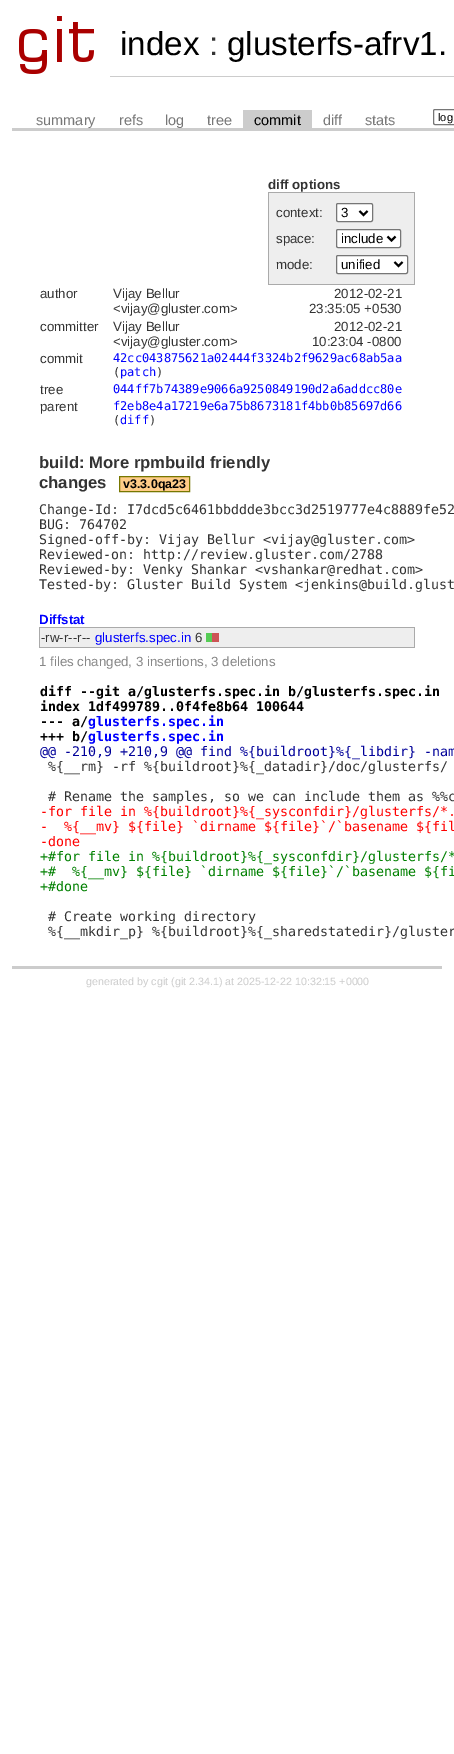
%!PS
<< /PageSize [454 1754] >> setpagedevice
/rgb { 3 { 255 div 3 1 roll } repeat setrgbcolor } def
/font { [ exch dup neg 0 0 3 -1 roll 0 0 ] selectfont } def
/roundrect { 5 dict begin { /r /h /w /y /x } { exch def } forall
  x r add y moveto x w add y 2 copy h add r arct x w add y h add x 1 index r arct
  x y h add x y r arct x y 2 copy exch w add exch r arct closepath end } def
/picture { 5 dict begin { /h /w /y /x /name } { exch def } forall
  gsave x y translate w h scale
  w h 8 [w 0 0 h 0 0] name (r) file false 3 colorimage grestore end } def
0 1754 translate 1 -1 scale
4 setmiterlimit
255 255 255 rgb
0 0 454 1754 rectfill
(img/1.rgb) 19 16 75 58 picture
[
  [110 76 344 1 204 204 204]
  [12 128 442 3 204 204 204]
  [243 110 69 18 204 204 204]
] { aload pop rgb rectfill } forall
118 118 118 rgb
433.5 109.5 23 15 1.5 roundrect stroke
[
  [12 966 430 3 204 204 204]
  [269 193 145 91 238 238 238]
  [268 192 147 1 170 170 170]
  [414 192 1 93 170 170 170]
  [268 284 147 1 170 170 170]
  [268 192 1 93 170 170 170]
] { aload pop rgb rectfill } forall
255 255 255 rgb
336.5 203.5 36 18 1.5 roundrect gsave fill grestore
118 118 118 rgb
stroke
0 0 0 rgb
2 setlinewidth
359.5 211 moveto 363.5 215 lineto 367.5 211 lineto stroke
255 255 255 rgb
336.5 229.5 64 18 1.5 roundrect gsave fill grestore
118 118 118 rgb
1 setlinewidth
stroke
0 0 0 rgb
2 setlinewidth
387.5 236.5 moveto 391.5 240.5 lineto 395.5 236.5 lineto stroke
255 255 255 rgb
336.5 255.5 71 18 1.5 roundrect gsave fill grestore
118 118 118 rgb
1 setlinewidth
stroke
0 0 0 rgb
2 setlinewidth
394.5 262 moveto 398.5 266 lineto 402.5 262 lineto stroke
255 204 136 rgb
119.5 476.5 moveto 189.5 476.5 lineto 189.5 491.5 lineto 119.5 491.5 lineto closepath gsave fill grestore
119 119 0 rgb
1 setlinewidth
stroke
[
  [40 628 374 19 238 238 238]
  [39 627 376 1 170 170 170]
  [414 627 1 21 170 170 170]
  [39 647 376 1 170 170 170]
  [39 627 1 21 170 170 170]
  [206 633 6 9 85 204 85]
  [212 633 7 9 204 85 85]
] { aload pop rgb rectfill } forall
/LiberationSans-Regular 33.25 font
0 0 0 rgb
120 55 moveto (index) show
51 51 51 rgb
209 55 moveto (:) show
0 0 0 rgb
227 55 moveto (glusterfs-afrv1.) show
/LiberationSans-Regular 14.5 font
119 119 119 rgb
[
  [(summary) 36 125]
  [(refs) 119 125]
  [(log) 165 125]
  [(tree) 207 125]
] { aload pop moveto show } forall
0 0 0 rgb
254 125 moveto (commit) show
119 119 119 rgb
323 125 moveto (diff) show
365 125 moveto (stats) show
/LiberationSans-Regular 11 font
0 0 0 rgb
438 121 moveto (log) show
/LiberationSans-Bold 13.3 font
51 51 51 rgb
268 189 moveto (diff options) show
/LiberationSans-Regular 13.3 font
276 217 moveto (context:) show
0 0 0 rgb
341 217 moveto (3) show
51 51 51 rgb
276 243 moveto (space:) show
0 0 0 rgb
341 243 moveto (include) show
51 51 51 rgb
276 269 moveto (mode:) show
0 0 0 rgb
341 269 moveto (unified) show
51 51 51 rgb
[
  [(author) 40 298]
  [(Vijay Bellur) 113 298]
  [(<vijay@gluster.com>) 113 313]
  [(2012-02-21) 334 298]
  [(23:35:05 +0530) 309 313]
  [(committer) 40 331]
  [(Vijay Bellur) 113 331]
  [(<vijay@gluster.com>) 113 346]
  [(2012-02-21) 334 331]
  [(10:23:04 -0800) 312 346]
  [(commit) 40 363]
] { aload pop moveto show } forall
/DejaVuSansMono-Regular 12 font
0 0 255 rgb
113 362 moveto (42cc043875621a02444f3324b2f9629ac68ab5aa) show
51 51 51 rgb
113 376 moveto (\() show
0 0 255 rgb
120 376 moveto (patch) show
51 51 51 rgb
156 376 moveto (\)) show
/LiberationSans-Regular 13.3 font
40 394 moveto (tree) show
/DejaVuSansMono-Regular 12 font
0 0 255 rgb
113 393 moveto (044ff7b74389e9066a9250849190d2a6addcc80e) show
/LiberationSans-Regular 13.3 font
51 51 51 rgb
40 411 moveto (parent) show
/DejaVuSansMono-Regular 12 font
0 0 255 rgb
113 410 moveto (f2eb8e4a17219e6a75b8673181f4bb0b85697d66) show
51 51 51 rgb
113 424 moveto (\() show
0 0 255 rgb
120 424 moveto (diff) show
51 51 51 rgb
149 424 moveto (\)) show
/LiberationSans-Bold 16.7 font
39 468 moveto (build: More rpmbuild friendly) show
39 488 moveto (changes) show
/LiberationSans-Bold 12.5 font
0 0 0 rgb
123 488 moveto (v3.3.0qa23) show
/DejaVuSansMono-Regular 13.3 font
51 51 51 rgb
[
  [(Change-Id: I7dcd5c6461bbddde3bcc3d2519777e4c8889fe52) 39 514]
  [(BUG: 764702) 39 529]
  [(Signed-off-by: Vijay Bellur <vijay@gluster.com>) 39 544]
  [(Reviewed-on: http://review.gluster.com/2788) 39 559]
  [(Reviewed-by: Venky Shankar <vshankar@redhat.com>) 39 574]
  [(Tested-by: Gluster Build System <jenkins@build.glust) 39 589]
] { aload pop moveto show } forall
/LiberationSans-Bold 13.3 font
0 0 255 rgb
39 624 moveto (Diffstat) show
/LiberationSans-Regular 13.3 font
51 51 51 rgb
41 642 moveto (-rw-r--r--) show
0 0 255 rgb
95 642 moveto (glusterfs.spec.in) show
51 51 51 rgb
195 642 moveto (6) show
136 136 136 rgb
39 666 moveto (1 files changed, 3 insertions, 3 deletions) show
/DejaVuSansMono-Bold 13.3 font
0 0 0 rgb
[
  [(diff --git a/glusterfs.spec.in b/glusterfs.spec.in) 40 696]
  [(index 1df499789..0f4fe8b64 100644) 40 711]
  [(--- a/) 40 726]
] { aload pop moveto show } forall
0 0 255 rgb
88 726 moveto (glusterfs.spec.in) show
0 0 0 rgb
40 741 moveto (+++ b/) show
0 0 255 rgb
88 741 moveto (glusterfs.spec.in) show
/DejaVuSansMono-Regular 13.3 font
0 0 153 rgb
40 756 moveto (@@ -210,9 +210,9 @@ find %{buildroot}%{_libdir} -nam) show
51 51 51 rgb
48 771 moveto (%{__rm} -rf %{buildroot}%{_datadir}/doc/glusterfs/) show
48 801 moveto (# Rename the samples, so we can include them as %%c) show
255 0 0 rgb
[
  [(-for file in %{buildroot}%{_sysconfdir}/glusterfs/*.) 40 816]
  [(-  %{__mv} ${file} `dirname ${file}`/`basename ${fil) 40 831]
  [(-done) 40 846]
] { aload pop moveto show } forall
0 128 0 rgb
[
  [(+#for file in %{buildroot}%{_sysconfdir}/glusterfs/*) 40 861]
  [(+#  %{__mv} ${file} `dirname ${file}`/`basename ${fi) 40 876]
  [(+#done) 40 891]
] { aload pop moveto show } forall
51 51 51 rgb
48 921 moveto (# Create working directory) show
48 936 moveto (%{__mkdir_p} %{buildroot}%{_sharedstatedir}/gluster) show
/LiberationSans-Regular 10.7 font
204 204 204 rgb
86 985 moveto (generated by cgit \(git 2.34.1\) at 2025-12-22 10:32:15 +0000) show
showpage
